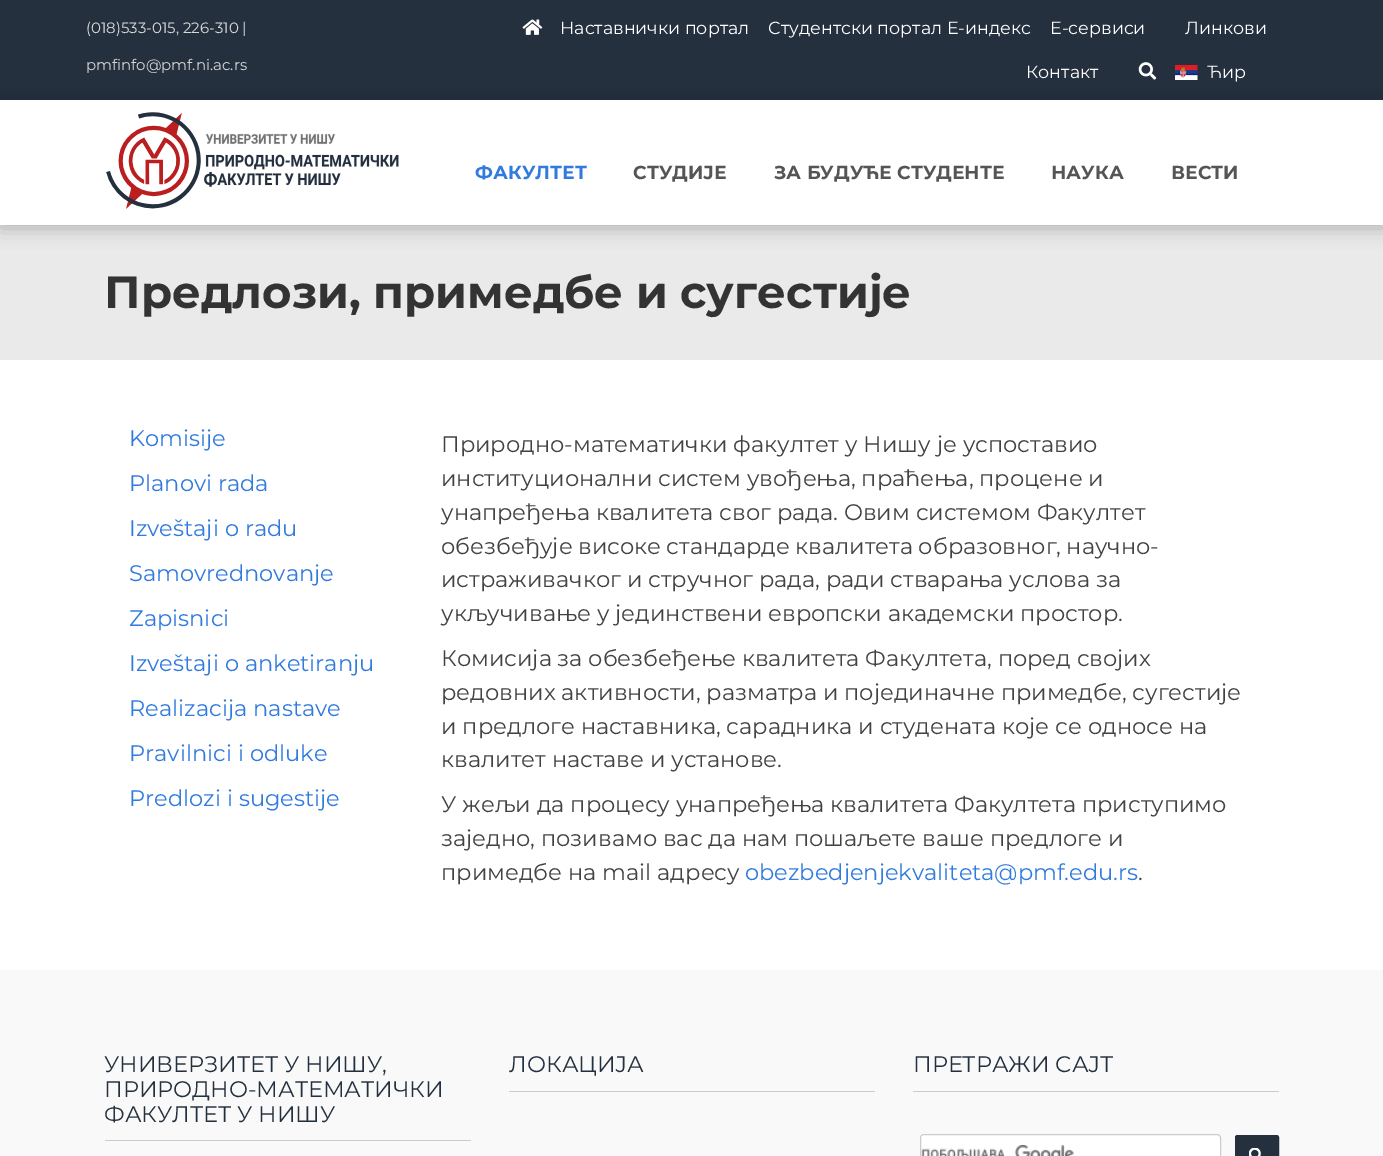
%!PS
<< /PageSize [1383 1156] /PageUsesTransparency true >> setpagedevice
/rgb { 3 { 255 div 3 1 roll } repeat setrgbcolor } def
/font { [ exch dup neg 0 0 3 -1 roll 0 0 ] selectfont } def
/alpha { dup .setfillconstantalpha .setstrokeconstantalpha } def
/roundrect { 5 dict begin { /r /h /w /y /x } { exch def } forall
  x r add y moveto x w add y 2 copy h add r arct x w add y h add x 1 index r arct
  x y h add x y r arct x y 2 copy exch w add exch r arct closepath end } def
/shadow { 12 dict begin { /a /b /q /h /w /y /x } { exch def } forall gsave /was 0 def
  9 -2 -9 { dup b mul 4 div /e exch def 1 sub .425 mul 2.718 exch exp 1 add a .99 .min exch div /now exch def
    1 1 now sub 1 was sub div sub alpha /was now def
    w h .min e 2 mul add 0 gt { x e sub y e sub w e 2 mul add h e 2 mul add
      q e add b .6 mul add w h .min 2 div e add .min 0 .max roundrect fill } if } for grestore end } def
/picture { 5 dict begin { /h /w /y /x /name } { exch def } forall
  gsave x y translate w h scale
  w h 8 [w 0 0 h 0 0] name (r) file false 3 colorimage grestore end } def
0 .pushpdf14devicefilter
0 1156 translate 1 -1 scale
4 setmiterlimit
249 249 249 rgb
0 0 1383 1156 rectfill
36 48 62 rgb
0 0 1383 100 rectfill
(img/1.rgb) 522 19 21 16 picture
(img/2.rgb) 1138 62 19 18 picture
(img/3.rgb) 1175 65 23 15 picture
234 234 234 rgb
0 225 1383 135 rectfill
0 0 0 rgb
0 103 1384 125 0 9.5 0.25 shadow
255 255 255 rgb
0 100 1383 125 rectfill
(img/4.rgb) 106 112 293 97 picture
[
  [0 360 1383 610 255 255 255]
  [105 1140 366 1 204 204 204]
  [509 1091 366 1 204 204 204]
  [913 1091 366 1 204 204 204]
] { aload pop rgb rectfill } forall
255 255 255 rgb
920 1134 301 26 4 roundrect fill
(img/5.rgb) 921 1145 153 11 picture
204 204 204 rgb
920.5 1134.5 300 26 3.5 roundrect stroke
36 48 62 rgb
1235.5 1135.5 43 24 2 roundrect gsave fill grestore
stroke
(img/6.rgb) 1249 1148 12 8 picture
/Montserrat-Regular 15 font
216 216 216 rgb
86 33 moveto (\(018\)533-015, 226-310 |) show
86 70 moveto (pmfinfo@pmf.ni.ac.rs) show
/Montserrat-Regular 17.5 font
255 255 255 rgb
[
  [(Наставнички портал) 560 34]
  [(Студентски портал Е-индекс) 768 34]
  [(Е-сервиси) 1050 34]
  [(Линкови) 1185 34]
  [(Контакт) 1026 78]
  [(Ћир) 1207 78]
] { aload pop moveto show } forall
/Montserrat-Bold 18.75 font
49 122 222 rgb
475 179 moveto (ФАКУЛТЕТ) show
85 85 85 rgb
[
  [(СТУДИЈЕ) 633 179]
  [(ЗА БУДУЋЕ СТУДЕНТЕ) 774 179]
  [(НАУКА) 1051 179]
  [(ВЕСТИ) 1171 179]
] { aload pop moveto show } forall
/Montserrat-Bold 45 font
51 51 51 rgb
104 308 moveto -0.5 0 32 (Предлози, примедбе и сугестије) widthshow
/Montserrat-Regular 22.5 font
49 122 222 rgb
[
  [(Komisije) 129 446]
  [(Planovi rada) 129 491]
  [(Izveštaji o radu) 129 536]
  [(Samovrednovanje) 129 581]
  [(Zapisnici) 129 626]
  [(Izveštaji o anketiranju) 129 671]
  [(Realizacija nastave) 129 716]
  [(Pravilnici i odluke) 129 761]
  [(Predlozi i sugestije) 129 806]
] { aload pop moveto show } forall
66 66 66 rgb
[
  [(Природно-математички факултет у Нишу је успоставио) 441 452]
  [(институционални систем увођења, праћења, процене и) 441 486]
  [(унапређења квалитета свог рада. Овим системом Факултет) 441 520]
] { aload pop moveto show } forall
441 554 moveto -0.5 0 32 (обезбеђује високе стандарде квалитета образовног, научно-) widthshow
441 587 moveto (истраживачког и стручног рада, ради стварања услова за) show
441 621 moveto (укључивање у јединствени европски академски простор.) show
441 666 moveto -0.25 0 32 (Комисија за обезбеђење квалитета Факултета, поред својих) widthshow
[
  [(редовних активности, разматра и појединачне примедбе, сугестије) 441 700]
  [(и предлоге наставника, сарадника и студената које се односе на) 441 734]
  [(квалитет наставе и установе.) 441 767]
  [(У жељи да процесу унапређења квалитета Факултета приступимо) 441 812]
  [(заједно, позивамо вас да нам пошаљете ваше предлоге и) 441 846]
  [(примедбе на mail адресу) 441 880]
] { aload pop moveto show } forall
49 122 222 rgb
745 880 moveto (obezbedjenjekvaliteta@pmf.edu.rs) show
66 66 66 rgb
1138 880 moveto (.) show
36 48 62 rgb
[
  [(УНИВЕРЗИТЕТ У НИШУ,) 104 1072]
  [(ПРИРОДНО-МАТЕМАТИЧКИ) 104 1097]
  [(ФАКУЛТЕТ У НИШУ) 104 1122]
  [(ЛОКАЦИЈА) 509 1072]
  [(ПРЕТРАЖИ САЈТ) 913 1072]
] { aload pop moveto show } forall
.poppdf14devicefilter showpage
